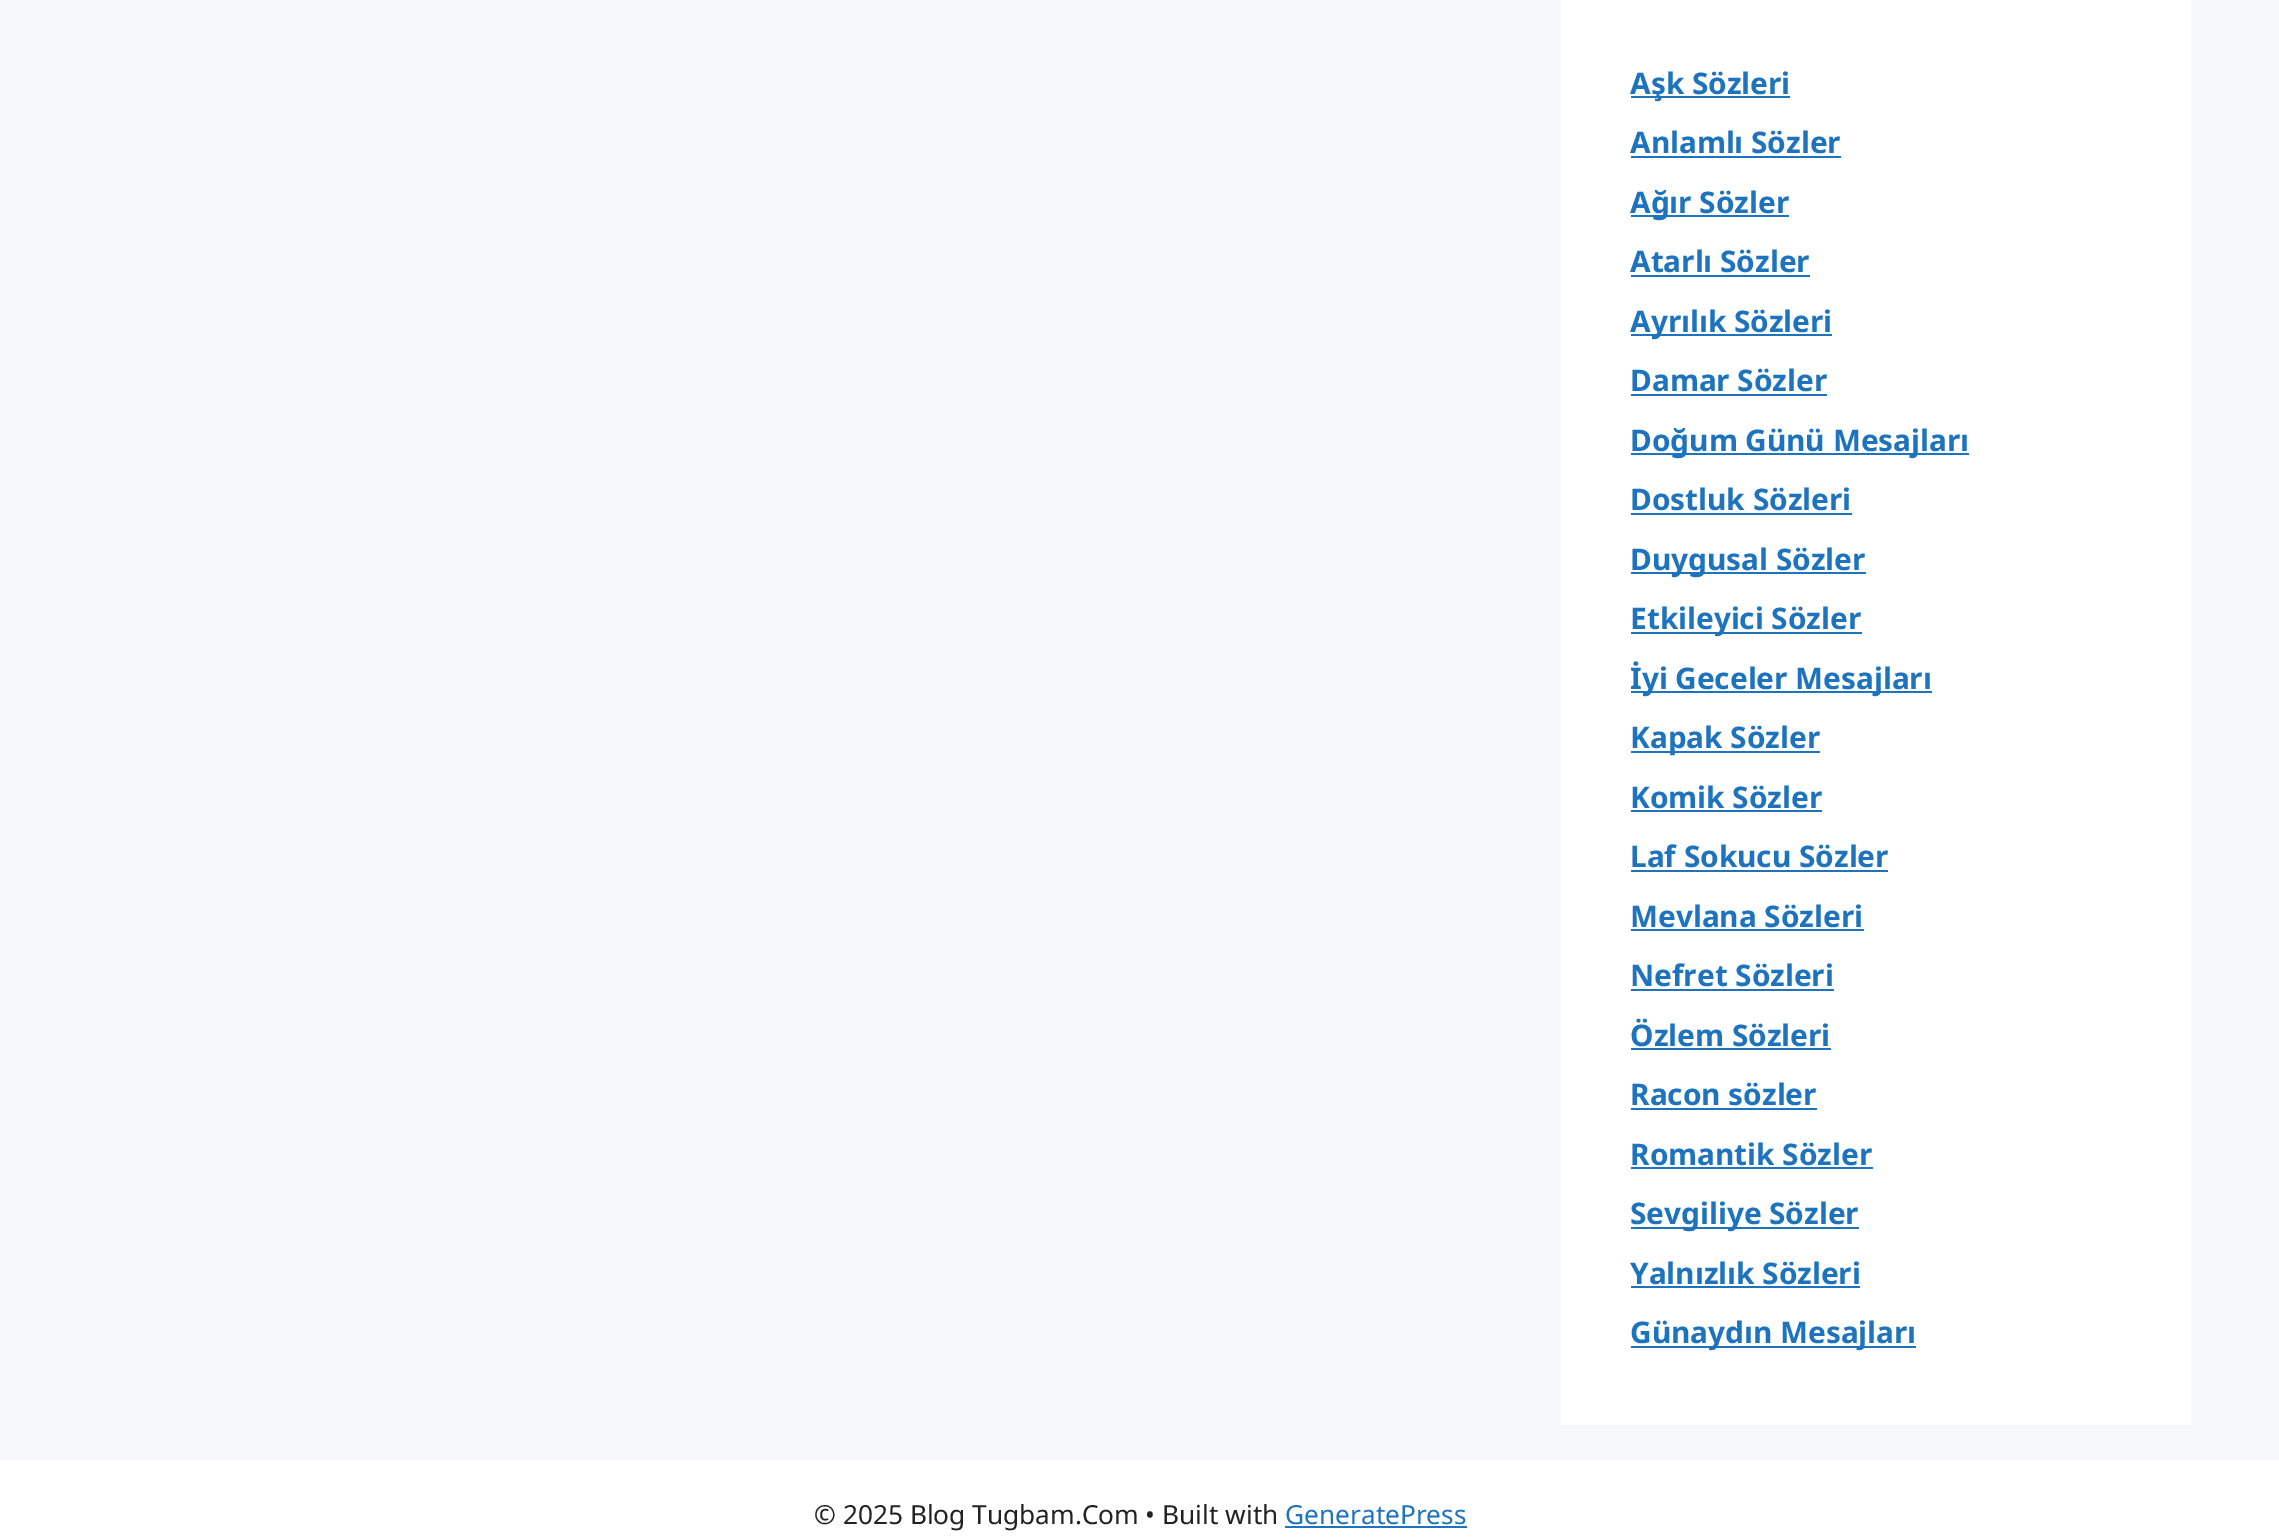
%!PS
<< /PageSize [2279 1540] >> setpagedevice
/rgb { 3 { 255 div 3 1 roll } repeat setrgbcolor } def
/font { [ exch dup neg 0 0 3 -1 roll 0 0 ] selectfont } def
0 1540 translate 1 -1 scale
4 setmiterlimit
247 248 249 rgb
0 0 2279 1540 rectfill
[
  [1561 0 630 1425 255 255 255]
  [1631 96 159 2 30 115 190]
  [1631 156 210 2 30 115 190]
  [1631 215 158 2 30 115 190]
  [1631 275 179 2 30 115 190]
  [1631 334 201 2 30 115 190]
  [1631 394 196 2 30 115 190]
  [1631 453 338 2 30 115 190]
  [1631 513 221 2 30 115 190]
  [1631 572 235 2 30 115 190]
  [1631 632 231 2 30 115 190]
  [1631 691 301 2 30 115 190]
  [1631 751 189 2 30 115 190]
  [1631 810 191 2 30 115 190]
  [1631 870 257 2 30 115 190]
  [1631 929 233 2 30 115 190]
  [1631 989 203 2 30 115 190]
  [1631 1048 200 2 30 115 190]
  [1631 1108 186 2 30 115 190]
  [1631 1167 242 2 30 115 190]
  [1631 1227 228 2 30 115 190]
  [1631 1286 229 2 30 115 190]
  [1631 1346 285 2 30 115 190]
  [0 1460 2279 80 255 255 255]
  [1285 1526 182 2 30 115 190]
] { aload pop rgb rectfill } forall
/NotoSans-Bold 29.75 font
[
  [(Aşk Sözleri) 1630 94]
  [(Anlamlı Sözler) 1630 153]
  [(Ağır Sözler) 1630 213]
  [(Atarlı Sözler) 1630 272]
  [(Ayrılık Sözleri) 1630 332]
  [(Damar Sözler) 1630 391]
  [(Doğum Günü Mesajları) 1630 451]
  [(Dostluk Sözleri) 1630 510]
  [(Duygusal Sözler) 1630 570]
  [(Etkileyici Sözler) 1630 629]
  [(İyi Geceler Mesajları) 1630 689]
  [(Kapak Sözler) 1630 748]
  [(Komik Sözler) 1630 808]
  [(Laf Sokucu Sözler) 1630 867]
  [(Mevlana Sözleri) 1630 927]
  [(Nefret Sözleri) 1630 986]
  [(Özlem Sözleri) 1630 1046]
  [(Racon sözler) 1630 1105]
  [(Romantik Sözler) 1630 1165]
  [(Sevgiliye Sözler) 1630 1224]
  [(Yalnızlık Sözleri) 1630 1284]
  [(Günaydın Mesajları) 1630 1343]
] { aload pop moveto show } forall
/NotoSans-Regular 26.25 font
34 34 34 rgb
814 1524 moveto (© 2025 Blog Tugbam.Com • Built with) show
30 115 190 rgb
1285 1524 moveto (GeneratePress) show
showpage
